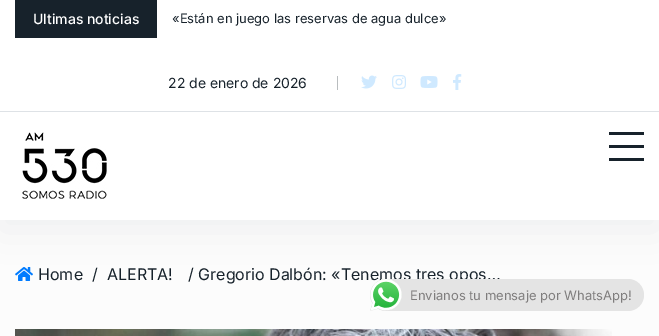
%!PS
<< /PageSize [659 336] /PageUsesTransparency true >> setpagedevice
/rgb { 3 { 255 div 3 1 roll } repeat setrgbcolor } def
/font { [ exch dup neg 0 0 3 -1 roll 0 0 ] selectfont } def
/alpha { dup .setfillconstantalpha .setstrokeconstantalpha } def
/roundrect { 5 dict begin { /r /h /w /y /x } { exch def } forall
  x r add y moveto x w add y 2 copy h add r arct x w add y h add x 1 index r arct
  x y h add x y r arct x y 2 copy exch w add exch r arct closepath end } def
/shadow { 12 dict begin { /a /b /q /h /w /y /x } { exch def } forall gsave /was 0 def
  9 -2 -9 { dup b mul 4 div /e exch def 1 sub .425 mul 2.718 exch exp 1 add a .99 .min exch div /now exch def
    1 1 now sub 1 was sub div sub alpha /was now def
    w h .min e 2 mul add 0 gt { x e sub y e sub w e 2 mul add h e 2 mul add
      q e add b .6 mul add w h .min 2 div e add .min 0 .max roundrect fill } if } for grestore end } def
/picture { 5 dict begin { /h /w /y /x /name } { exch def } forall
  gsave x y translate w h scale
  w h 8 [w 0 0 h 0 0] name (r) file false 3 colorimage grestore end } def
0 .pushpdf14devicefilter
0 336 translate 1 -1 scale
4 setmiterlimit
252 252 252 rgb
0 0 659 336 rectfill
(img/6.rgb) 15 267 18 14 picture
23 34 43 rgb
0 10 659 220 0 20 0.05 shadow
[
  [0 0 659 111 255 255 255]
  [0 111 659 1 222 226 230]
  [15 0 142 38 23 34 43]
  [337 76 1 14 185 189 191]
] { aload pop rgb rectfill } forall
(img/1.rgb) 361 75 16 14 picture
(img/2.rgb) 392 75 14 14 picture
(img/3.rgb) 420 76 18 12 picture
(img/4.rgb) 453 74 9 16 picture
255 255 255 rgb
0 112 659 108 rectfill
(img/5.rgb) 22 132 85 67 picture
[
  [609 132 35 3 23 34 43]
  [609 145 35 3 23 34 43]
  [609 158 35 3 23 34 43]
] { aload pop rgb rectfill } forall
(img/7.rgb) 15 329 597 7 picture
/Inter-Medium 14 font
255 255 255 rgb
33 24 moveto (Ultimas noticias) show
/Inter-Regular 13 font
23 34 43 rgb
172 23 moveto («Están en juego las reservas de agua dulce») show
/Inter-Regular 14 font
168 88 moveto (22 de enero de 2026) show
/Inter-Regular 16 font
[
  [(Home) 38 280]
  [(/) 92 280]
  [(ALERTA!) 107 280]
  [(/ Gregorio Dalbón: «Tenemos tres opos…) 188 280]
] { aload pop moveto show } forall
228 228 228 rgb
370 279 274 32 16 roundrect fill
(img/8.rgb) 370 279 32 32 picture
/Inter-Regular 13 font
127 125 125 rgb
410 300 moveto (Envianos tu mensaje por WhatsApp!) show
.poppdf14devicefilter showpage
